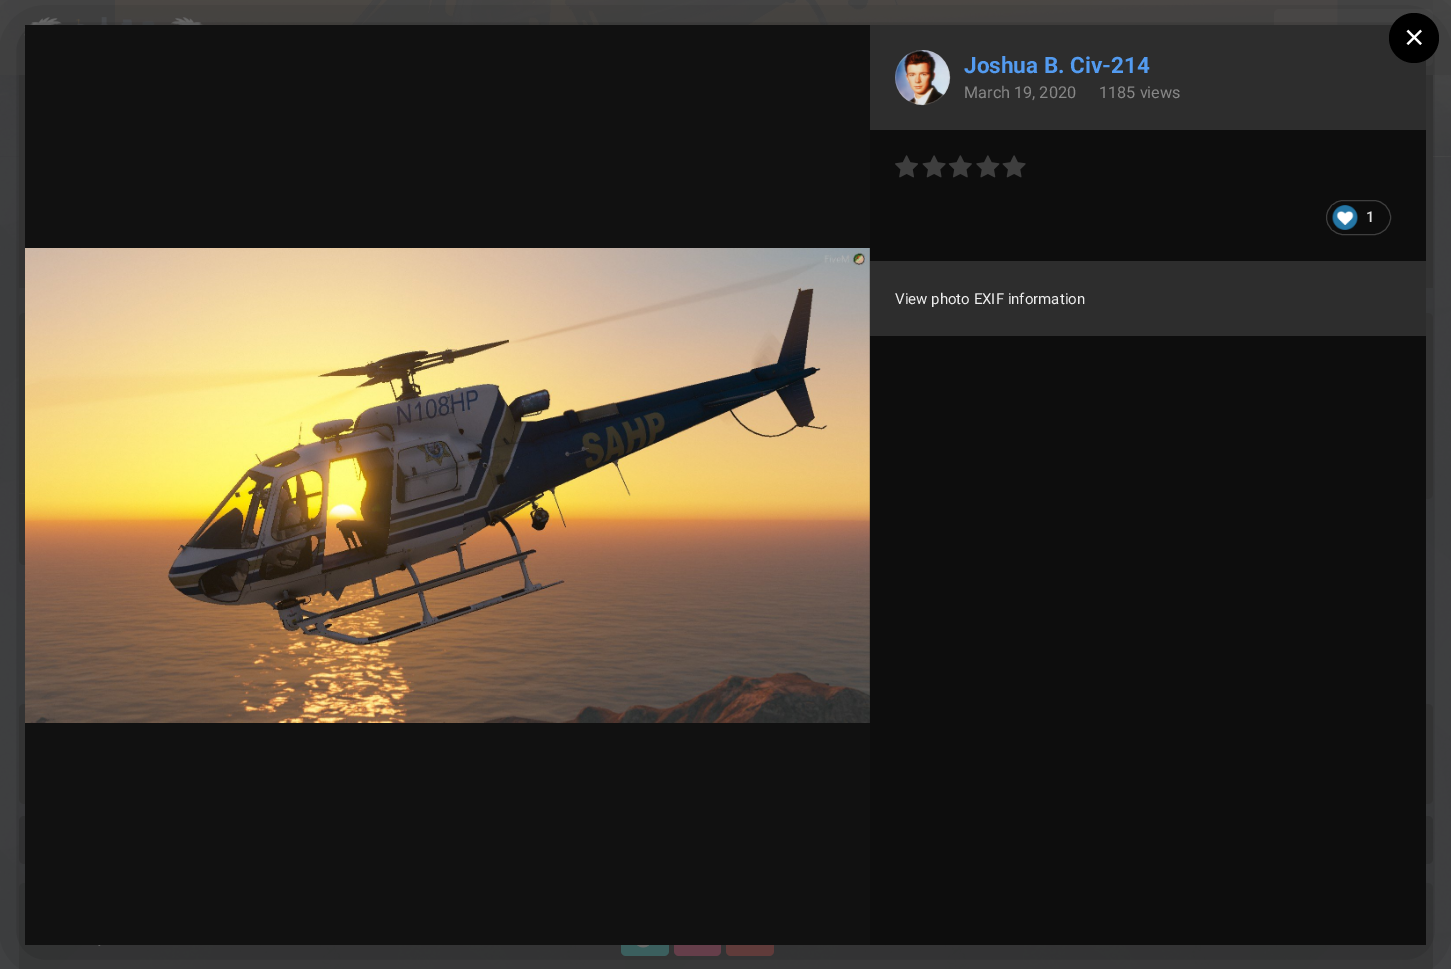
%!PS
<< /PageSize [1451 969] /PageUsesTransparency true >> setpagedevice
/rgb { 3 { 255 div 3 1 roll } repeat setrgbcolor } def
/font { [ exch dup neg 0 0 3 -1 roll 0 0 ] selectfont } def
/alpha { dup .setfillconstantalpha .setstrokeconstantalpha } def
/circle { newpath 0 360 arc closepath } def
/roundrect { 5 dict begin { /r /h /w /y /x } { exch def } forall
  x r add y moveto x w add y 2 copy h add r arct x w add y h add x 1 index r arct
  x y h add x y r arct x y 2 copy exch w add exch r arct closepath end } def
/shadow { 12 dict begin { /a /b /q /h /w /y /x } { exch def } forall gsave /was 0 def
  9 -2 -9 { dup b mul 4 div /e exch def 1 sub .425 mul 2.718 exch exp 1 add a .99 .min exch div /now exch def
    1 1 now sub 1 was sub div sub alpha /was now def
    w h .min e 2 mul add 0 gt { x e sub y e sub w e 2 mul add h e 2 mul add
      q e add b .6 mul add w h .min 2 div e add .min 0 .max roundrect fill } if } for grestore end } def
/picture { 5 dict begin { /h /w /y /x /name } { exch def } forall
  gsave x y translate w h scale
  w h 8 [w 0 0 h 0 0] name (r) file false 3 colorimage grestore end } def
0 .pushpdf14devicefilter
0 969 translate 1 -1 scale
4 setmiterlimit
68 69 70 rgb
0 0 1451 969 rectfill
(img/1.rgb) 0 0 1451 157 picture
(img/2.rgb) 0 0 1451 969 picture
64 64 64 rgb
19 0 1414 288 rectfill
69 69 69 rgb
1337 0 1 25 rectfill
(img/4.rgb) 115 0 1223 25 picture
0.85 alpha
72 72 72 rgb
0 0 1451 75 rectfill
1 alpha
(img/3.rgb) 24 17 180 19 picture
0.08 alpha
135 135 135 rgb
1274 9 159 57 5 roundrect fill
0.85 alpha
63 63 63 rgb
19 313 1049 252 5 roundrect fill
1 alpha
69 69 69 rgb
19 493 6 1 rectfill
0.85 alpha
63 63 63 rgb
1098 313 335 186 5 roundrect fill
19 704 1414 100 5 roundrect fill
0.7 alpha
59 59 59 rgb
19 816 1414 48 5 roundrect fill
0.5 alpha
19 883 1414 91 5 roundrect fill
1 alpha
(img/12.rgb) 98 945 3 1 picture
74 118 117 rgb
621 909 48 47 5 roundrect fill
(img/13.rgb) 637 945 12 3 picture
125 78 91 rgb
674 909 47 47 5 roundrect fill
120 74 72 rgb
726 909 48 47 5 roundrect fill
0 0 0 rgb
25 31 1401 920 0 34.5 0.4 shadow
45 45 45 rgb
870 25 556 105 rectfill
0 0 0 rgb
1414 38 25 circle fill
17 17 17 rgb
25 25 845 920 rectfill
13 13 13 rgb
870 130 556 815 rectfill
922.5 77.5 27.5 circle fill
(img/5.rgb) 895 50 55 55 picture
0.3 alpha
191 191 191 rgb
922.5 77.5 27 circle stroke
1 alpha
(img/6.rgb) 895 155 23 23 picture
(img/7.rgb) 922 155 24 23 picture
(img/8.rgb) 948 155 24 23 picture
(img/9.rgb) 976 155 24 23 picture
(img/7.rgb) 1002 155 24 23 picture
62 62 62 rgb
1326.5 200.5 64 34 17 roundrect stroke
(img/10.rgb) 1332 205 26 25 picture
45 45 45 rgb
870 261 556 75 rectfill
(img/11.rgb) 25 248 845 475 picture
/LiberationSans-Regular 35 font
255 255 255 rgb
1404 49 moveto (×) show
/Roboto-Bold 22.5 font
83 155 240 rgb
964 73 moveto (Joshua B. Civ-214) show
/Roboto-Regular 16.25 font
135 135 135 rgb
964 98 moveto (March 19, 2020) show
1099 98 moveto (1185 views) show
/Roboto-Medium 15 font
227 227 227 rgb
1366 222 moveto (1) show
/Roboto-Regular 15 font
237 237 237 rgb
895 304 moveto (View photo EXIF information) show
.poppdf14devicefilter showpage
